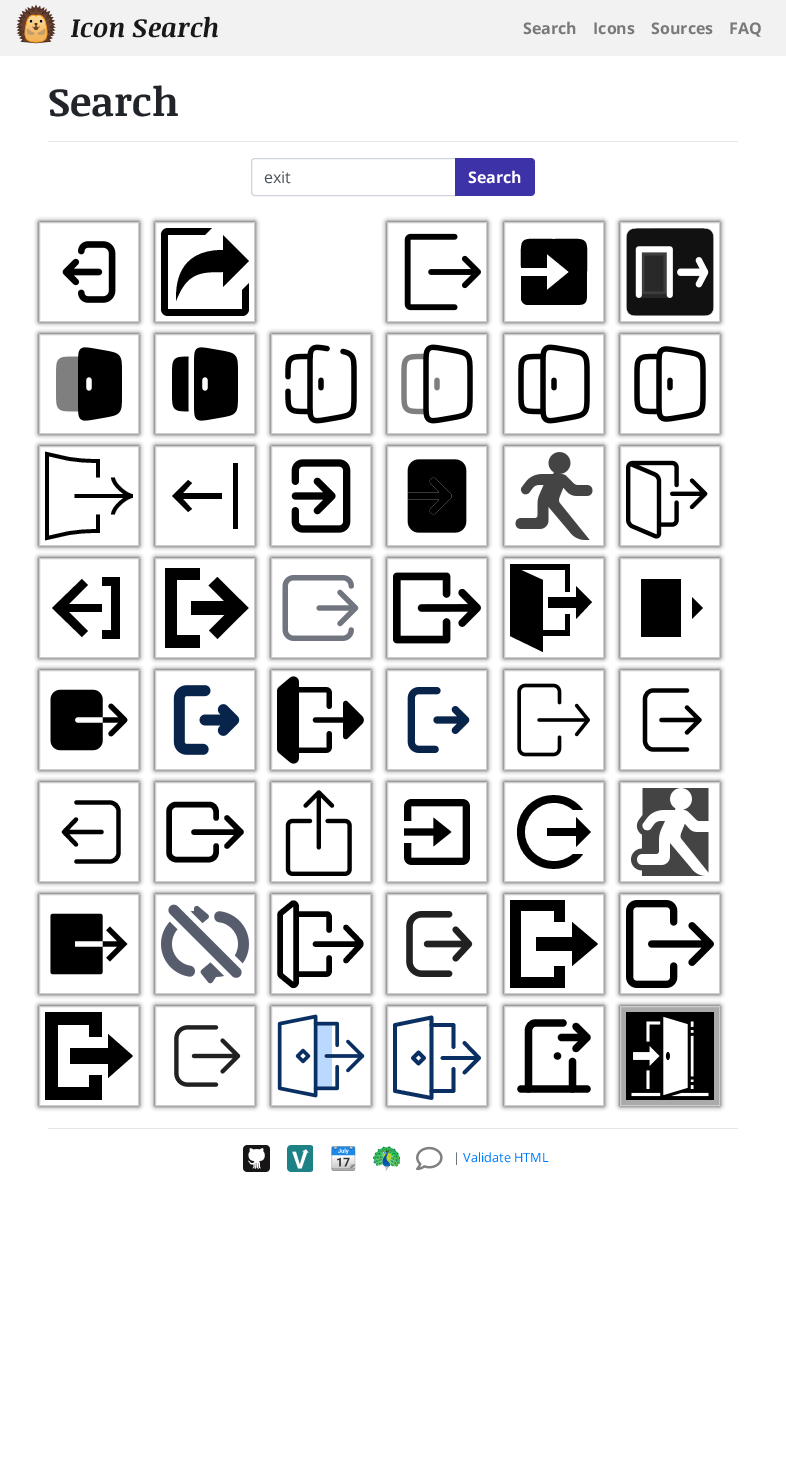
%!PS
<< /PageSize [786 1478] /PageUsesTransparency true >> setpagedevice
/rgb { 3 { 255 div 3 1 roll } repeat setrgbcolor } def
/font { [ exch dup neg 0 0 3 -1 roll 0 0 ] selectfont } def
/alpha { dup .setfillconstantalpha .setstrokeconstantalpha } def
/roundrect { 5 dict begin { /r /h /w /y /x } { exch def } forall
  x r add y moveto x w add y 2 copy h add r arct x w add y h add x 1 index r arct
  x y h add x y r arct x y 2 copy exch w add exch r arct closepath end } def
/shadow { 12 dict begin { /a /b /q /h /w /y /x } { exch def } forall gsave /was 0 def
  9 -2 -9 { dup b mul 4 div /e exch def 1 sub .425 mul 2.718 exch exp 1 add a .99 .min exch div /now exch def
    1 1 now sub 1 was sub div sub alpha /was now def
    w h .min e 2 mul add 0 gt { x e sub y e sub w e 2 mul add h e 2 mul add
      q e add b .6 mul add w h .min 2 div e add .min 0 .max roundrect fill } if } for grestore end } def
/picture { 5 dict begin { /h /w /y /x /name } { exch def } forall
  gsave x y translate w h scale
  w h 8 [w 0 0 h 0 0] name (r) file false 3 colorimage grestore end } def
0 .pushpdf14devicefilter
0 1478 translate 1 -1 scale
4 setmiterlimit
255 255 255 rgb
0 0 786 1478 rectfill
242 242 242 rgb
0 0 786 56 rectfill
(img/1.rgb) 16 4 40 40 picture
230 230 230 rgb
48 141 690 1 rectfill
206 212 218 rgb
255 158.5 moveto 455.5 158.5 lineto 455.5 195.5 lineto 255 195.5 lineto 253 195.5 251.5 194 251.5 192 curveto 251.5 162 lineto 251.5 160 253 158.5 255 158.5 curveto closepath stroke
62 50 168 rgb
455 158 moveto 531 158 lineto 533 158 535 160 535 162 curveto 535 192 lineto 535 194 533 196 531 196 curveto 455 196 lineto closepath fill
gsave
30 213 moveto 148 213 lineto 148 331 lineto 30 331 lineto closepath 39 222 moveto 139 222 lineto 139 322 lineto 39 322 lineto closepath eoclip newpath
29 29 29 rgb
39 222 100 100 0 2.5 1 shadow
grestore
gsave
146 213 moveto 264 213 lineto 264 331 lineto 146 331 lineto closepath 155 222 moveto 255 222 lineto 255 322 lineto 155 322 lineto closepath eoclip newpath
29 29 29 rgb
155 222 100 100 0 2.5 1 shadow
grestore
gsave
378 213 moveto 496 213 lineto 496 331 lineto 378 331 lineto closepath 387 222 moveto 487 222 lineto 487 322 lineto 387 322 lineto closepath eoclip newpath
29 29 29 rgb
387 222 100 100 0 2.5 1 shadow
grestore
gsave
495 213 moveto 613 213 lineto 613 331 lineto 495 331 lineto closepath 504 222 moveto 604 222 lineto 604 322 lineto 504 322 lineto closepath eoclip newpath
29 29 29 rgb
504 222 100 100 0 2.5 1 shadow
grestore
gsave
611 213 moveto 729 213 lineto 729 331 lineto 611 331 lineto closepath 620 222 moveto 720 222 lineto 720 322 lineto 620 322 lineto closepath eoclip newpath
29 29 29 rgb
620 222 100 100 0 2.5 1 shadow
grestore
204 204 204 rgb
39.5 222.5 99 99 rectstroke
155.5 222.5 99 99 rectstroke
387.5 222.5 99 99 rectstroke
504.5 222.5 99 99 rectstroke
620.5 222.5 99 99 rectstroke
(img/2.rgb) 62 241 54 62 picture
0 0 0 rgb
242 309 moveto 168 309 lineto 168 235 lineto 205 235 lineto 212 228 lineto 168 228 lineto 164 228 161 231 161 235 curveto 161 309 lineto 161 313 164 316 168 316 curveto 242 316 lineto 246 316 249 313 249 309 curveto 249 283 lineto 242 290 lineto closepath 176 301 moveto 187 272 201 272 223 272 curveto 223 287 lineto 249 261 lineto 223 235 lineto 223 250 lineto 176 250 176 287 176 301 curveto closepath fill
(img/3.rgb) 404 233 77 78 picture
528 305 moveto 571 305 lineto 587 305 587 305 587 289 curveto 587 272 lineto 587 234 592 239 554 239 curveto 517 239 521 234 521 268 curveto 547 268 lineto 547 254 lineto 569 272 lineto 547 290 lineto 547 276 lineto 521 276 lineto 521 298 lineto 521 302 524 305 528 305 curveto closepath fill
(img/4.rgb) 626 228 88 88 picture
gsave
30 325 moveto 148 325 lineto 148 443 lineto 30 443 lineto closepath 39 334 moveto 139 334 lineto 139 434 lineto 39 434 lineto closepath eoclip newpath
29 29 29 rgb
39 334 100 100 0 2.5 1 shadow
grestore
gsave
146 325 moveto 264 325 lineto 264 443 lineto 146 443 lineto closepath 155 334 moveto 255 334 lineto 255 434 lineto 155 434 lineto closepath eoclip newpath
29 29 29 rgb
155 334 100 100 0 2.5 1 shadow
grestore
gsave
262 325 moveto 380 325 lineto 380 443 lineto 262 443 lineto closepath 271 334 moveto 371 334 lineto 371 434 lineto 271 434 lineto closepath eoclip newpath
29 29 29 rgb
271 334 100 100 0 2.5 1 shadow
grestore
gsave
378 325 moveto 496 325 lineto 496 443 lineto 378 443 lineto closepath 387 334 moveto 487 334 lineto 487 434 lineto 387 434 lineto closepath eoclip newpath
29 29 29 rgb
387 334 100 100 0 2.5 1 shadow
grestore
gsave
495 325 moveto 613 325 lineto 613 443 lineto 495 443 lineto closepath 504 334 moveto 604 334 lineto 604 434 lineto 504 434 lineto closepath eoclip newpath
29 29 29 rgb
504 334 100 100 0 2.5 1 shadow
grestore
gsave
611 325 moveto 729 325 lineto 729 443 lineto 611 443 lineto closepath 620 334 moveto 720 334 lineto 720 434 lineto 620 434 lineto closepath eoclip newpath
29 29 29 rgb
620 334 100 100 0 2.5 1 shadow
grestore
204 204 204 rgb
39.5 334.5 99 99 rectstroke
155.5 334.5 99 99 rectstroke
271.5 334.5 99 99 rectstroke
387.5 334.5 99 99 rectstroke
504.5 334.5 99 99 rectstroke
620.5 334.5 99 99 rectstroke
(img/5.rgb) 56 347 66 74 picture
(img/6.rgb) 172 347 66 74 picture
(img/7.rgb) 285 344 72 80 picture
(img/8.rgb) 401 344 72 80 picture
(img/9.rgb) 518 344 72 80 picture
(img/10.rgb) 634 346 72 76 picture
gsave
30 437 moveto 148 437 lineto 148 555 lineto 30 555 lineto closepath 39 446 moveto 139 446 lineto 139 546 lineto 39 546 lineto closepath eoclip newpath
29 29 29 rgb
39 446 100 100 0 2.5 1 shadow
grestore
gsave
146 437 moveto 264 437 lineto 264 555 lineto 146 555 lineto closepath 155 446 moveto 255 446 lineto 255 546 lineto 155 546 lineto closepath eoclip newpath
29 29 29 rgb
155 446 100 100 0 2.5 1 shadow
grestore
gsave
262 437 moveto 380 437 lineto 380 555 lineto 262 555 lineto closepath 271 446 moveto 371 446 lineto 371 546 lineto 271 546 lineto closepath eoclip newpath
29 29 29 rgb
271 446 100 100 0 2.5 1 shadow
grestore
gsave
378 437 moveto 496 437 lineto 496 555 lineto 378 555 lineto closepath 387 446 moveto 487 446 lineto 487 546 lineto 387 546 lineto closepath eoclip newpath
29 29 29 rgb
387 446 100 100 0 2.5 1 shadow
grestore
gsave
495 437 moveto 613 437 lineto 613 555 lineto 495 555 lineto closepath 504 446 moveto 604 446 lineto 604 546 lineto 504 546 lineto closepath eoclip newpath
29 29 29 rgb
504 446 100 100 0 2.5 1 shadow
grestore
gsave
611 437 moveto 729 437 lineto 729 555 lineto 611 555 lineto closepath 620 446 moveto 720 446 lineto 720 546 lineto 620 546 lineto closepath eoclip newpath
29 29 29 rgb
620 446 100 100 0 2.5 1 shadow
grestore
39.5 446.5 99 99 rectstroke
155.5 446.5 99 99 rectstroke
271.5 446.5 99 99 rectstroke
387.5 446.5 99 99 rectstroke
504.5 446.5 99 99 rectstroke
620.5 446.5 99 99 rectstroke
0 0 0 rgb
3.7 setlinewidth
133 496 moveto 74.5 496 lineto 113 477.5 moveto 113 484.5 126.5 496 133 496 curveto 126.5 496 113 507.5 113 514.5 curveto 98 477.5 moveto 98 461 lineto 87.5 461 77 460.5 67 458.5 curveto 47 454 lineto 47 538 lineto 67 533.5 lineto 77 531.5 87.5 531 98 531 curveto 98 514.5 lineto stroke
192 509 moveto 183 499 lineto 222 499 lineto 222 493 lineto 183 493 lineto 192 483 lineto 188 480 lineto 172 496 lineto 188 512 lineto closepath fill
233 463 5 66 rectfill
(img/11.rgb) 291 459 60 74 picture
(img/12.rgb) 407 459 60 74 picture
(img/13.rgb) 515 452 78 88 picture
(img/14.rgb) 626 460 82 79 picture
gsave
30 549 moveto 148 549 lineto 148 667 lineto 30 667 lineto closepath 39 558 moveto 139 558 lineto 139 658 lineto 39 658 lineto closepath eoclip newpath
29 29 29 rgb
39 558 100 100 0 2.5 1 shadow
grestore
gsave
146 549 moveto 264 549 lineto 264 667 lineto 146 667 lineto closepath 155 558 moveto 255 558 lineto 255 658 lineto 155 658 lineto closepath eoclip newpath
29 29 29 rgb
155 558 100 100 0 2.5 1 shadow
grestore
gsave
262 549 moveto 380 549 lineto 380 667 lineto 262 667 lineto closepath 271 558 moveto 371 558 lineto 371 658 lineto 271 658 lineto closepath eoclip newpath
29 29 29 rgb
271 558 100 100 0 2.5 1 shadow
grestore
gsave
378 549 moveto 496 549 lineto 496 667 lineto 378 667 lineto closepath 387 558 moveto 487 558 lineto 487 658 lineto 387 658 lineto closepath eoclip newpath
29 29 29 rgb
387 558 100 100 0 2.5 1 shadow
grestore
gsave
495 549 moveto 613 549 lineto 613 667 lineto 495 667 lineto closepath 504 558 moveto 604 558 lineto 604 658 lineto 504 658 lineto closepath eoclip newpath
29 29 29 rgb
504 558 100 100 0 2.5 1 shadow
grestore
gsave
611 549 moveto 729 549 lineto 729 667 lineto 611 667 lineto closepath 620 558 moveto 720 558 lineto 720 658 lineto 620 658 lineto closepath eoclip newpath
29 29 29 rgb
620 558 100 100 0 2.5 1 shadow
grestore
204 204 204 rgb
1 setlinewidth
39.5 558.5 99 99 rectstroke
155.5 558.5 99 99 rectstroke
271.5 558.5 99 99 rectstroke
387.5 558.5 99 99 rectstroke
504.5 558.5 99 99 rectstroke
620.5 558.5 99 99 rectstroke
0 0 0 rgb
102 577 moveto 102 586 lineto 111 586 lineto 111 630 lineto 102 630 lineto 102 639 lineto 120 639 lineto 120 577 lineto closepath 102 612 moveto 102 604 lineto 69 604 lineto 88 585 lineto 82 579 lineto 52 608 lineto 82 637 lineto 88 631 lineto 69 612 lineto closepath fill
1 1 1 rgb
165 568 35 12 rectfill
239.5 616.5 moveto 208.5 585.5 lineto 217.5 577 lineto 248.5 608 lineto closepath fill
(img/15.rgb) 282 575 77 66 picture
(img/16.rgb) 393 572 88 72 picture
0 0 0 rgb
576 619 moveto 576 608 lineto 548 608 lineto 548 597 lineto 576 597 lineto 576 586 lineto 592 602 lineto closepath 570 614 moveto 570 636 lineto 543 636 lineto 543 652 lineto 510 636 lineto 510 564 lineto 570 564 lineto 570 592 lineto 565 592 lineto 565 570 lineto 521 570 lineto 543 580 lineto 543 630 lineto 565 630 lineto 565 614 lineto closepath fill
[
  [641 579 40 58 0 0 0]
  [165 580 12 55 1 1 1]
  [191 601 44 14 1 1 1]
] { aload pop rgb rectfill } forall
248.5 608 moveto 217.5 639 lineto 209 630.5 lineto 240 599.5 lineto closepath fill
0 0 0 rgb
692 619 moveto 703 608 lineto 692 597 lineto fill
1 1 1 rgb
165 635 35 13 rectfill
gsave
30 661 moveto 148 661 lineto 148 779 lineto 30 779 lineto closepath 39 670 moveto 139 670 lineto 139 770 lineto 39 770 lineto closepath eoclip newpath
29 29 29 rgb
39 670 100 100 0 2.5 1 shadow
grestore
gsave
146 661 moveto 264 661 lineto 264 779 lineto 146 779 lineto closepath 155 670 moveto 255 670 lineto 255 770 lineto 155 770 lineto closepath eoclip newpath
29 29 29 rgb
155 670 100 100 0 2.5 1 shadow
grestore
gsave
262 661 moveto 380 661 lineto 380 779 lineto 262 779 lineto closepath 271 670 moveto 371 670 lineto 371 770 lineto 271 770 lineto closepath eoclip newpath
29 29 29 rgb
271 670 100 100 0 2.5 1 shadow
grestore
gsave
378 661 moveto 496 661 lineto 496 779 lineto 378 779 lineto closepath 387 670 moveto 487 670 lineto 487 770 lineto 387 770 lineto closepath eoclip newpath
29 29 29 rgb
387 670 100 100 0 2.5 1 shadow
grestore
gsave
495 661 moveto 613 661 lineto 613 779 lineto 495 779 lineto closepath 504 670 moveto 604 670 lineto 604 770 lineto 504 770 lineto closepath eoclip newpath
29 29 29 rgb
504 670 100 100 0 2.5 1 shadow
grestore
gsave
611 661 moveto 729 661 lineto 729 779 lineto 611 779 lineto closepath 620 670 moveto 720 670 lineto 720 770 lineto 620 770 lineto closepath eoclip newpath
29 29 29 rgb
620 670 100 100 0 2.5 1 shadow
grestore
204 204 204 rgb
39.5 670.5 99 99 rectstroke
155.5 670.5 99 99 rectstroke
271.5 670.5 99 99 rectstroke
387.5 670.5 99 99 rectstroke
504.5 670.5 99 99 rectstroke
620.5 670.5 99 99 rectstroke
(img/17.rgb) 50 689 78 62 picture
(img/18.rgb) 173 685 67 70 picture
(img/19.rgb) 277 676 87 88 picture
(img/20.rgb) 407 687 63 66 picture
(img/21.rgb) 517 683 73 74 picture
0 0 0 rgb
4.2 setlinewidth
1 setlinecap
1 setlinejoin
687 732.5 moveto 699.5 720 lineto 687 707.5 lineto 699.5 720 moveto 661.5 720 lineto stroke
687 690.5 moveto 653 690.5 lineto 648.5 690.5 645 694.5 645 699 curveto 645 741 lineto 645 745.5 648.5 749.5 653 749.5 curveto 687 749.5 lineto stroke
gsave
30 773 moveto 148 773 lineto 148 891 lineto 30 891 lineto closepath 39 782 moveto 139 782 lineto 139 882 lineto 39 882 lineto closepath eoclip newpath
29 29 29 rgb
39 782 100 100 0 2.5 1 shadow
grestore
gsave
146 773 moveto 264 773 lineto 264 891 lineto 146 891 lineto closepath 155 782 moveto 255 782 lineto 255 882 lineto 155 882 lineto closepath eoclip newpath
29 29 29 rgb
155 782 100 100 0 2.5 1 shadow
grestore
gsave
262 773 moveto 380 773 lineto 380 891 lineto 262 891 lineto closepath 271 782 moveto 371 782 lineto 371 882 lineto 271 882 lineto closepath eoclip newpath
29 29 29 rgb
271 782 100 100 0 2.5 1 shadow
grestore
gsave
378 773 moveto 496 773 lineto 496 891 lineto 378 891 lineto closepath 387 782 moveto 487 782 lineto 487 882 lineto 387 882 lineto closepath eoclip newpath
29 29 29 rgb
387 782 100 100 0 2.5 1 shadow
grestore
gsave
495 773 moveto 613 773 lineto 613 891 lineto 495 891 lineto closepath 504 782 moveto 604 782 lineto 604 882 lineto 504 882 lineto closepath eoclip newpath
29 29 29 rgb
504 782 100 100 0 2.5 1 shadow
grestore
gsave
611 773 moveto 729 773 lineto 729 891 lineto 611 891 lineto closepath 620 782 moveto 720 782 lineto 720 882 lineto 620 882 lineto closepath eoclip newpath
29 29 29 rgb
620 782 100 100 0 2.5 1 shadow
grestore
204 204 204 rgb
1 setlinewidth
0 setlinecap
0 setlinejoin
39.5 782.5 99 99 rectstroke
155.5 782.5 99 99 rectstroke
271.5 782.5 99 99 rectstroke
387.5 782.5 99 99 rectstroke
504.5 782.5 99 99 rectstroke
620.5 782.5 99 99 rectstroke
0 0 0 rgb
4.2 setlinewidth
1 setlinecap
1 setlinejoin
76 844.5 moveto 64 832 lineto 76 819.5 lineto 64 832 moveto 101.5 832 lineto stroke
76.5 802.5 moveto 110 802.5 lineto 114.5 802.5 118.5 806.5 118.5 811 curveto 118.5 853 lineto 118.5 857.5 114.5 861.5 110 861.5 curveto 76.5 861.5 lineto stroke
5.5 setlinewidth
216 818 moveto 216 811.5 lineto 216 807.5 213 804.5 209 804.5 curveto 176 804.5 lineto 172.5 804.5 169 807.5 169 811.5 curveto 169 852.5 lineto 169 856.5 172.5 859.5 176 859.5 curveto 209 859.5 lineto 213 859.5 216 856.5 216 852.5 curveto 216 846 lineto stroke
(img/22.rgb) 285 790 67 86 picture
(img/23.rgb) 404 799 66 66 picture
591 832 moveto 576 817 lineto 576 828 lineto 547 828 lineto 547 836 lineto 576 836 lineto 576 847 lineto 583 854 moveto 574 867 557 872 542 867 curveto 527 862 517 848 517 832 curveto 517 816 527 802 542 797 curveto 557 792 574 797 583 810 curveto 573 810 lineto 562 800 544 800 533 812 curveto 522 823 522 841 533 852 curveto 544 864 562 864 573 854 curveto closepath fill
(img/24.rgb) 630 788 79 88 picture
227 818 moveto 241 832 lineto 227 846 lineto 194 832 moveto 241 832 lineto stroke
gsave
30 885 moveto 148 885 lineto 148 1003 lineto 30 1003 lineto closepath 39 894 moveto 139 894 lineto 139 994 lineto 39 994 lineto closepath eoclip newpath
29 29 29 rgb
39 894 100 100 0 2.5 1 shadow
grestore
gsave
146 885 moveto 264 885 lineto 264 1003 lineto 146 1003 lineto closepath 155 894 moveto 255 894 lineto 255 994 lineto 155 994 lineto closepath eoclip newpath
29 29 29 rgb
155 894 100 100 0 2.5 1 shadow
grestore
gsave
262 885 moveto 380 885 lineto 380 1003 lineto 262 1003 lineto closepath 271 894 moveto 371 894 lineto 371 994 lineto 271 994 lineto closepath eoclip newpath
29 29 29 rgb
271 894 100 100 0 2.5 1 shadow
grestore
gsave
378 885 moveto 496 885 lineto 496 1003 lineto 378 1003 lineto closepath 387 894 moveto 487 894 lineto 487 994 lineto 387 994 lineto closepath eoclip newpath
29 29 29 rgb
387 894 100 100 0 2.5 1 shadow
grestore
gsave
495 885 moveto 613 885 lineto 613 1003 lineto 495 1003 lineto closepath 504 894 moveto 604 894 lineto 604 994 lineto 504 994 lineto closepath eoclip newpath
29 29 29 rgb
504 894 100 100 0 2.5 1 shadow
grestore
gsave
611 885 moveto 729 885 lineto 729 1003 lineto 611 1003 lineto closepath 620 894 moveto 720 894 lineto 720 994 lineto 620 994 lineto closepath eoclip newpath
29 29 29 rgb
620 894 100 100 0 2.5 1 shadow
grestore
204 204 204 rgb
1 setlinewidth
0 setlinecap
0 setlinejoin
39.5 894.5 99 99 rectstroke
155.5 894.5 99 99 rectstroke
271.5 894.5 99 99 rectstroke
387.5 894.5 99 99 rectstroke
504.5 894.5 99 99 rectstroke
620.5 894.5 99 99 rectstroke
(img/25.rgb) 50 913 78 62 picture
(img/26.rgb) 161 904 88 80 picture
0 0 0 rgb
5.5 setlinewidth
1 setlinecap
1 setlinejoin
281 913 moveto 292 904 lineto 293.5 902 296 904 296 906 curveto 296 982.5 lineto 296 984.5 293.5 986.5 292 984.5 curveto 281 975.5 lineto 280.5 975 280 974 280 973 curveto 280 915 lineto 280 914.5 280.5 913 281 913 curveto closepath 296 914 moveto 326.5 914 lineto 328 914 329 915 329 916.5 curveto 329 930 lineto 296 974 moveto 326.5 974 lineto 328 974 329 973 329 971.5 curveto 329 958 lineto 359.5 944 moveto 315.5 944 lineto 346 927.5 moveto 360 942 lineto 361 943 361 944.5 360 945.5 curveto 346 960.5 lineto stroke
(img/27.rgb) 406 911 67 66 picture
510 900 moveto 510 988 lineto 565 988 lineto 565 966 lineto 554 966 lineto 554 977 lineto 521 977 lineto 521 911 lineto 554 911 lineto 554 922 lineto 565 922 lineto 565 900 lineto closepath 572 922 moveto 572 937 lineto 536 937 lineto 536 951 lineto 572 951 lineto 572 966 lineto 598 944 lineto closepath fill
(img/28.rgb) 626 900 88 88 picture
gsave
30 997 moveto 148 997 lineto 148 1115 lineto 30 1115 lineto closepath 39 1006 moveto 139 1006 lineto 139 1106 lineto 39 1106 lineto closepath eoclip newpath
29 29 29 rgb
39 1006 100 100 0 2.5 1 shadow
grestore
gsave
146 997 moveto 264 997 lineto 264 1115 lineto 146 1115 lineto closepath 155 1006 moveto 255 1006 lineto 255 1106 lineto 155 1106 lineto closepath eoclip newpath
29 29 29 rgb
155 1006 100 100 0 2.5 1 shadow
grestore
gsave
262 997 moveto 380 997 lineto 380 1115 lineto 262 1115 lineto closepath 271 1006 moveto 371 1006 lineto 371 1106 lineto 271 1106 lineto closepath eoclip newpath
29 29 29 rgb
271 1006 100 100 0 2.5 1 shadow
grestore
gsave
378 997 moveto 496 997 lineto 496 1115 lineto 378 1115 lineto closepath 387 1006 moveto 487 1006 lineto 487 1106 lineto 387 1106 lineto closepath eoclip newpath
29 29 29 rgb
387 1006 100 100 0 2.5 1 shadow
grestore
gsave
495 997 moveto 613 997 lineto 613 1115 lineto 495 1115 lineto closepath 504 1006 moveto 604 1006 lineto 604 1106 lineto 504 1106 lineto closepath eoclip newpath
29 29 29 rgb
504 1006 100 100 0 2.5 1 shadow
grestore
29 29 29 rgb
620 1006 100 100 0 2.5 1 shadow
204 204 204 rgb
1 setlinewidth
0 setlinecap
0 setlinejoin
39.5 1006.5 99 99 rectstroke
155.5 1006.5 99 99 rectstroke
271.5 1006.5 99 99 rectstroke
387.5 1006.5 99 99 rectstroke
504.5 1006.5 99 99 rectstroke
170 170 170 rgb
620.5 1006.5 moveto 719.5 1006.5 lineto 719.5 1105.5 lineto 620.5 1105.5 lineto closepath gsave fill grestore
204 204 204 rgb
stroke
0 0 0 rgb
45 1012 moveto 45 1100 lineto 102 1100 lineto 102 1075 lineto 89 1075 lineto 89 1087 lineto 58 1087 lineto 58 1025 lineto 89 1025 lineto 89 1037 lineto 102 1037 lineto 102 1012 lineto closepath 108 1034 moveto 108 1048 lineto 70 1048 lineto 70 1064 lineto 108 1064 lineto 108 1078 lineto 133 1056 lineto closepath fill
(img/29.rgb) 277 1014 88 84 picture
9 47 99 rgb
3.7 setlinewidth
1 setlinecap
1 setlinejoin
442.5 1058 moveto 479 1058 lineto 464.5 1043 moveto 479 1058 lineto 464.5 1072.5 lineto stroke
431.5 1025 moveto 453.5 1025 lineto 453.5 1047 lineto stroke
418.5 1052.5 moveto 413 1058 lineto 418.5 1063.5 lineto 424 1058 lineto closepath 453.5 1069 moveto 453.5 1091 lineto 431.5 1091 lineto stroke
431.5 1098 moveto 395 1091 lineto 395 1025 lineto 431.5 1017.5 lineto closepath stroke
0 0 0 rgb
7.3 setlinewidth
557.5 1056 moveto 557.5 1056 lineto stroke
521 1089 moveto 587 1089 lineto stroke
528.5 1089 moveto 528.5 1030.5 lineto 528.5 1026.5 531.5 1023 535.5 1023 curveto 563 1023 lineto 572.5 1061.5 moveto 572.5 1089 lineto stroke
(img/30.rgb) 626 1012 88 88 picture
(img/31.rgb) 174 1025 67 62 picture
561.5 1037.5 moveto 587 1037.5 lineto 576 1026.5 moveto 587 1037.5 lineto 576 1048.5 lineto stroke
230 230 230 rgb
48 1128 690 1 rectfill
(img/32.rgb) 243 1145 27 27 picture
(img/33.rgb) 287 1145 26 27 picture
(img/34.rgb) 331 1146 25 25 picture
(img/35.rgb) 373 1146 27 25 picture
(img/36.rgb) 416 1146 27 25 picture
/NoticiaText-BoldItalic 26.5 font
24 24 24 rgb
71 37 moveto (Icon Search) show
/OpenSans-Bold 16 font
121 121 121 rgb
[
  [(Search) 523 34]
  [(Icons) 593 34]
  [(Sources) 651 34]
  [(FAQ) 729 34]
] { aload pop moveto show } forall
/NoticiaText-Bold 40 font
33 37 41 rgb
48 116 moveto (Search) show
/OpenSans-Regular 16 font
73 80 87 rgb
264 183 moveto (exit) show
/OpenSans-Bold 16 font
255 255 255 rgb
468 183 moveto (Search) show
/OpenSans-Regular 12.75 font
108 117 125 rgb
453 1162 moveto (|) show
0 123 255 rgb
463 1162 moveto (Validate HTML) show
.poppdf14devicefilter showpage
